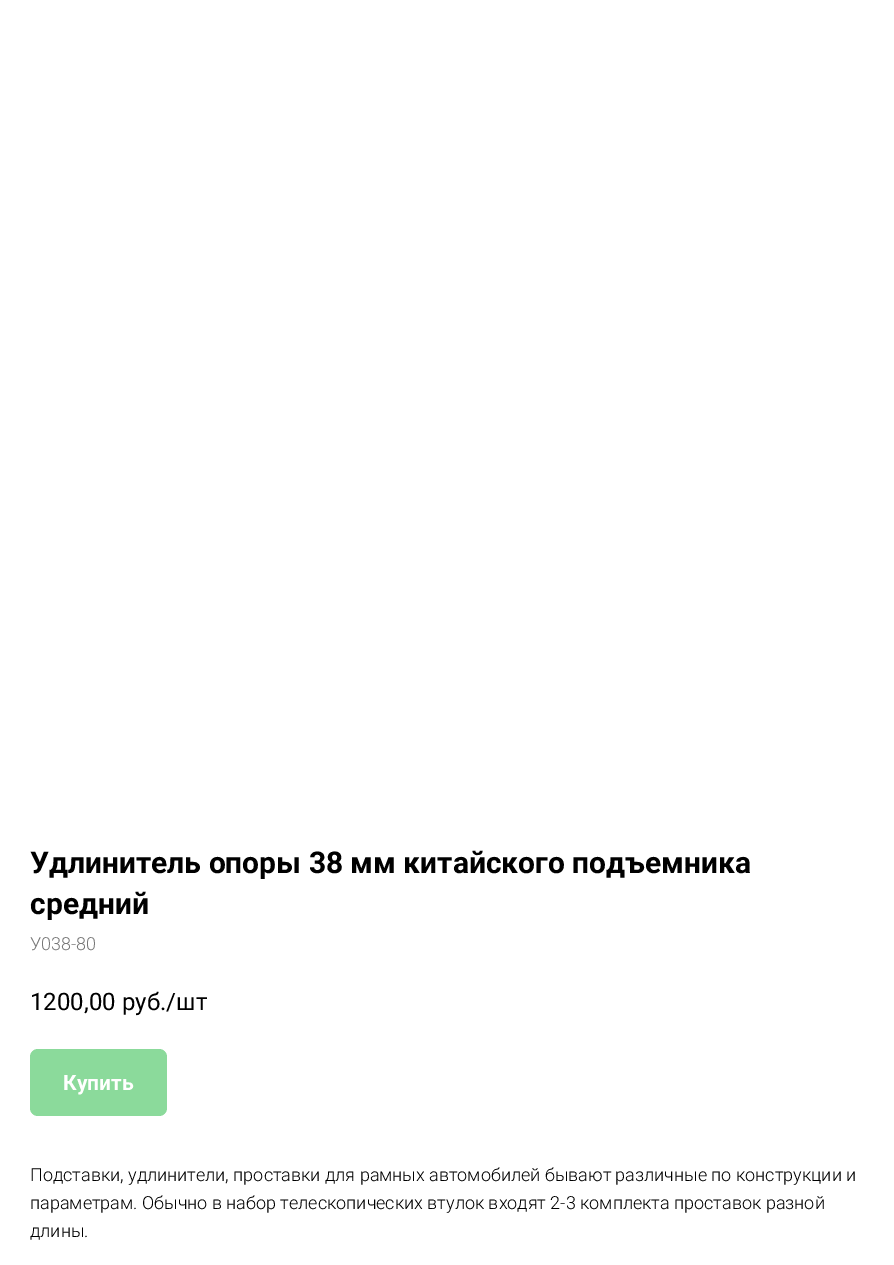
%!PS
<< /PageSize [894 1265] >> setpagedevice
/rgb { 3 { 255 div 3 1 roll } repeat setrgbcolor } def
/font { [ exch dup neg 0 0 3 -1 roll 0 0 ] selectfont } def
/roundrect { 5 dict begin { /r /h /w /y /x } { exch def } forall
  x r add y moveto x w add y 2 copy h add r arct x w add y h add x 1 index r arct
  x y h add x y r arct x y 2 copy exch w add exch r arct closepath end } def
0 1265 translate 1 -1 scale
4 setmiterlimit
255 255 255 rgb
0 0 894 1265 rectfill
139 218 155 rgb
30 1049 137 67 8 roundrect fill
/Roboto-Bold 30 font
0 0 0 rgb
30 873 moveto (Удлинитель опоры 38 мм китайского подъемника) show
30 914 moveto (средний) show
/Roboto-Light 18 font
119 119 119 rgb
30 950 moveto (У038-80) show
/Roboto-Regular 24 font
0 0 0 rgb
30 1010 moveto (1200,00) show
122 1010 moveto (руб./шт) show
/Roboto-Bold 21 font
255 255 255 rgb
63 1090 moveto (Купить) show
/Roboto-Light 18 font
0 0 0 rgb
[
  [(Подставки, удлинители, проставки для рамных автомобилей бывают различные по конструкции и) 30 1181]
  [(параметрам. Обычно в набор телескопических втулок входят 2-3 комплекта проставок разной) 30 1209]
  [(длины.) 30 1237]
] { aload pop moveto show } forall
showpage
